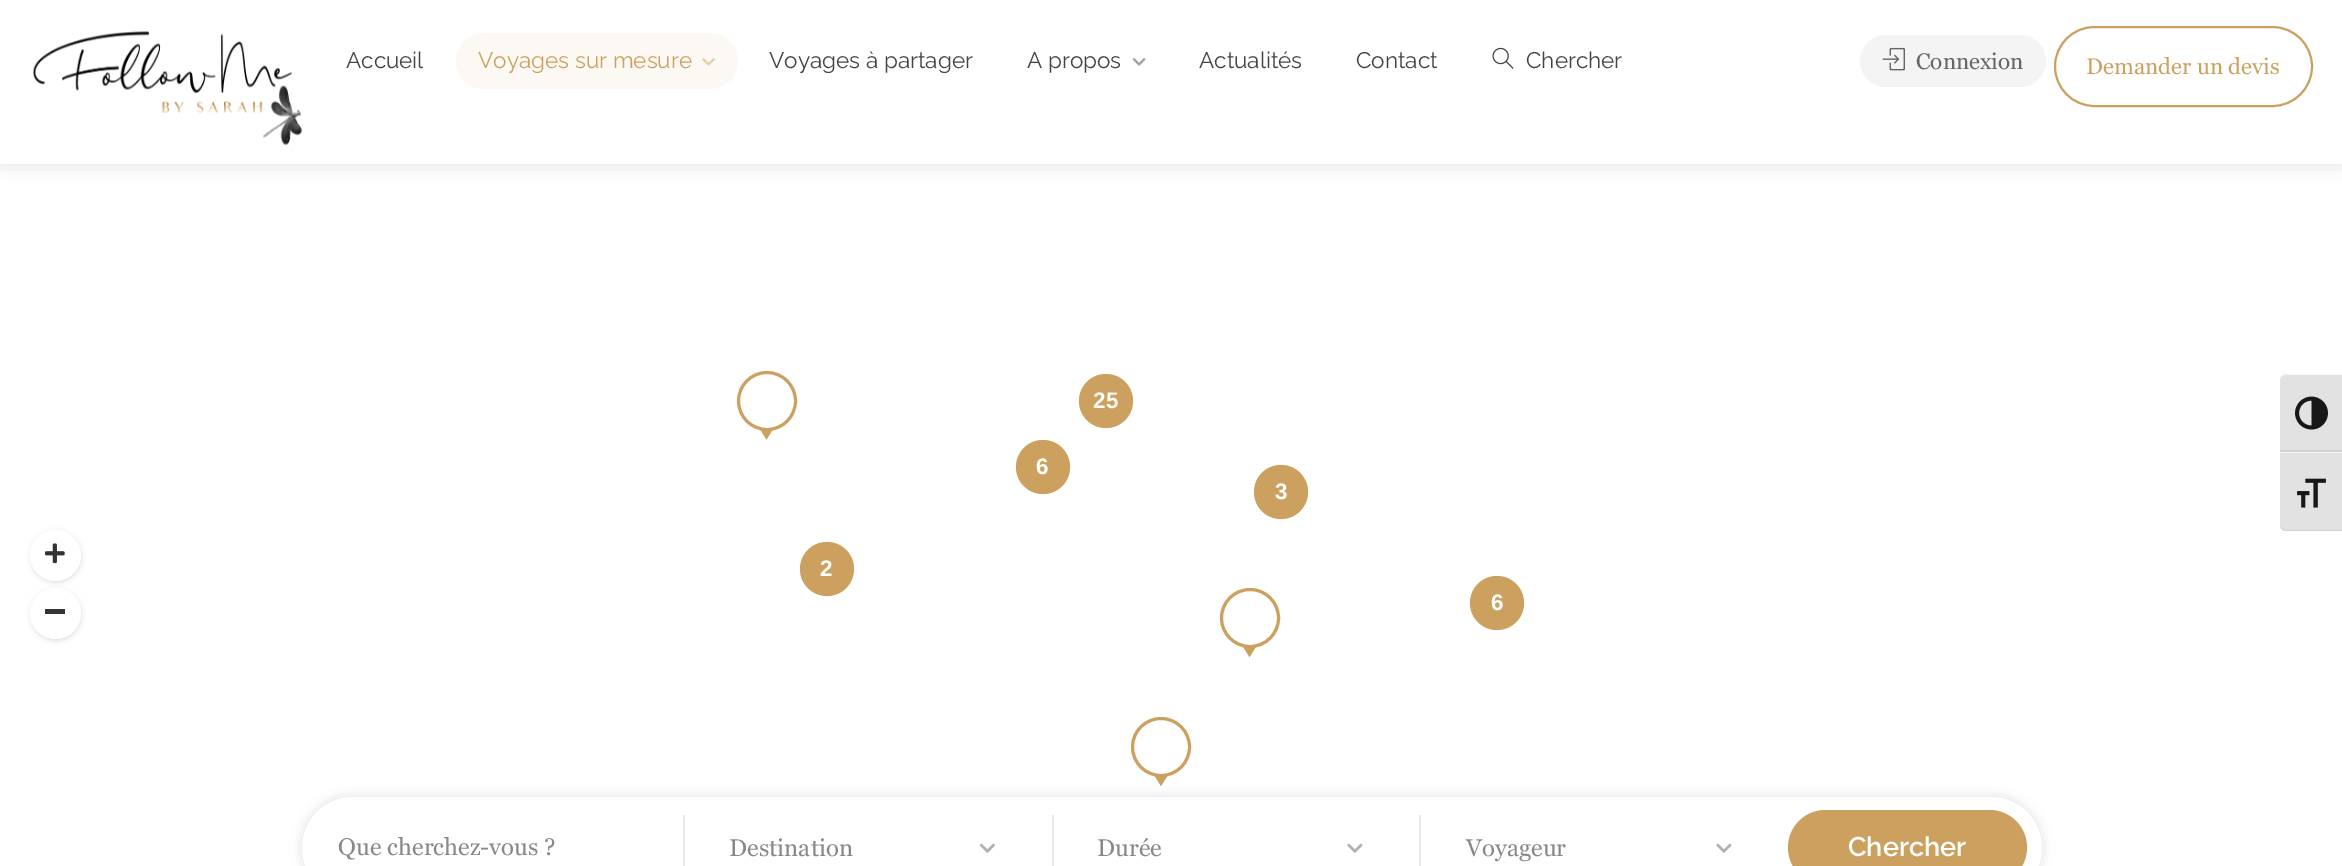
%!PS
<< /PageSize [2342 866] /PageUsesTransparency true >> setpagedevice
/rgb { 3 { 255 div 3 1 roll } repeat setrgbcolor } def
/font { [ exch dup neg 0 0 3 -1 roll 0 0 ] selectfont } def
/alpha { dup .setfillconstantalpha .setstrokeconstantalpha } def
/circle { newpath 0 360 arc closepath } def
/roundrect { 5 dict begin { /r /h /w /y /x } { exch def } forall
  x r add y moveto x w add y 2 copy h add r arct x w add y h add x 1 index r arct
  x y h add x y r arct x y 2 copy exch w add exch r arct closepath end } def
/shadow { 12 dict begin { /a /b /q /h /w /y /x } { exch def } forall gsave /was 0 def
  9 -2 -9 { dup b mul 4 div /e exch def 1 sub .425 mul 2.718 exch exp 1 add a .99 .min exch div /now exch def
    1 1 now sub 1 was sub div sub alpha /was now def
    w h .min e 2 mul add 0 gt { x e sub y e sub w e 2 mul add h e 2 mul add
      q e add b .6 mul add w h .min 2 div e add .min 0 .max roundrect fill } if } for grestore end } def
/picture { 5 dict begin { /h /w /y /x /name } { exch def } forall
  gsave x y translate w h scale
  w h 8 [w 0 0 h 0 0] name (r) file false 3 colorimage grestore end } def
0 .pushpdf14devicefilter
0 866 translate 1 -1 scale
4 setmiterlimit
255 255 255 rgb
0 0 2342 866 rectfill
gsave
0 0 moveto 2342 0 lineto 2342 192 lineto 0 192 lineto closepath 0 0 moveto 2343 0 lineto 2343 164 lineto 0 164 lineto closepath eoclip newpath
0 0 0 rgb
0 0 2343 164 0 9 0.12 shadow
grestore
(img/1.rgb) 33 31 269 121 picture
252 249 245 rgb
456 33 282 56 28 roundrect fill
(img/2.rgb) 702 58 13 8 picture
(img/3.rgb) 1132 58 14 8 picture
(img/4.rgb) 1492 47 22 22 picture
244 244 244 rgb
1860 35 186 52 26 roundrect fill
(img/5.rgb) 1882 47 23 24 picture
204 161 95 rgb
2 setlinewidth
2055 27 257 79 39.5 roundrect stroke
0 0 0 rgb
32 533 48 48 24 3 0.2 shadow
255 255 255 rgb
55.5 555.5 25.5 circle fill
(img/6.rgb) 45 543 20 21 picture
0 0 0 rgb
32 591 48 48 24 3 0.2 shadow
255 255 255 rgb
55.5 613.5 25.5 circle fill
51 51 51 rgb
45 609 20 5 rectfill
204 161 95 rgb
759 427.5 moveto 774 427.5 lineto 766.5 439.5 lineto closepath fill
255 255 255 rgb
767 401 28.5 circle gsave fill grestore
204 161 95 rgb
3 setlinewidth
stroke
1106 401 27 circle fill
1043 467 27 circle fill
1281 492 27 circle fill
827 569 27 circle fill
1242 645 moveto 1257 645 lineto 1249.5 657 lineto closepath fill
255 255 255 rgb
1250 618 28.5 circle gsave fill grestore
204 161 95 rgb
stroke
1497 603 27 circle fill
1153.5 774 moveto 1168.5 774 lineto 1161 786 lineto closepath fill
255 255 255 rgb
1161 747 28.5 circle gsave fill grestore
204 161 95 rgb
stroke
0 0 0 rgb
302 797 1740 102 51 6 0.12 shadow
255 255 255 rgb
302 797 1740 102 51 roundrect fill
233 233 233 rgb
683 815 2 51 rectfill
1052 815 2 51 rectfill
(img/7.rgb) 979 843 16 10 picture
1419 815 2 51 rectfill
(img/8.rgb) 1347 843 16 10 picture
(img/8.rgb) 1716 843 16 10 picture
204 161 95 rgb
1788 810 239 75 37.5 roundrect fill
226 226 226 rgb
2286 374 moveto 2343 374 lineto 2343 452 lineto 2280 452 lineto 2280 380 lineto 2280 376.5 2282.5 374 2286 374 curveto closepath fill
245 245 245 rgb
2286 374 moveto 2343 374 lineto 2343 375 lineto 2286 375 lineto 2283 375 2280 377 2280 380 curveto 2280 376 2283 374 2286 374 curveto closepath fill
210 210 210 rgb
2280 450 62 2 rectfill
(img/9.rgb) 2295 396 33 34 picture
226 226 226 rgb
2280 452 moveto 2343 452 lineto 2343 531 lineto 2286 531 lineto 2282.5 531 2280 528.5 2280 525 curveto closepath fill
245 245 245 rgb
2280 452 62 1 rectfill
210 210 210 rgb
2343 531 moveto 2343 530 lineto 2286 530 lineto 2283 530 2280 527 2280 525 curveto 2280 528 2283 531 2286 531 curveto closepath fill
(img/10.rgb) 2297 478 29 30 picture
/Raleway-Thin 22.5 font
68 68 68 rgb
346 68 moveto (Accueil) show
204 161 95 rgb
478 68 moveto (Voyages sur mesure) show
68 68 68 rgb
[
  [(Voyages à partager) 769 68]
  [(A propos) 1027 68]
  [(Actualités) 1199 68]
  [(Contact) 1356 68]
  [(Chercher) 1526 68]
] { aload pop moveto show } forall
/Georgia-Regular 22.5 font
102 102 102 rgb
1916 69 moveto (Connexion) show
204 161 95 rgb
2086 74 moveto (Demander un devis) show
/LiberationSans-Bold 22.5 font
255 255 255 rgb
1093 408 moveto (25) show
0.2 alpha
204 161 95 rgb
6 setlinewidth
1105.5 400.5 13.5 circle stroke
11 setlinewidth
1106 401 21.5 circle stroke
1 alpha
255 255 255 rgb
1036 474 moveto (6) show
0.2 alpha
204 161 95 rgb
1043 467 21.5 circle stroke
1 alpha
255 255 255 rgb
1275 499 moveto (3) show
0.2 alpha
204 161 95 rgb
1281 492 21.5 circle stroke
1 alpha
255 255 255 rgb
820 576 moveto (2) show
0.2 alpha
204 161 95 rgb
827 569 21.5 circle stroke
1 alpha
255 255 255 rgb
1491 610 moveto (6) show
0.2 alpha
204 161 95 rgb
1497 603 21.5 circle stroke
/Georgia-Regular 24 font
1 alpha
136 136 136 rgb
[
  [(Que cherchez-vous ?) 338 855]
  [(Destination) 729 856]
  [(Durée) 1097 856]
  [(Voyageur) 1466 856]
] { aload pop moveto show } forall
/Raleway-SemiBold 27 font
255 255 255 rgb
1848 856 moveto (Chercher) show
.poppdf14devicefilter showpage
